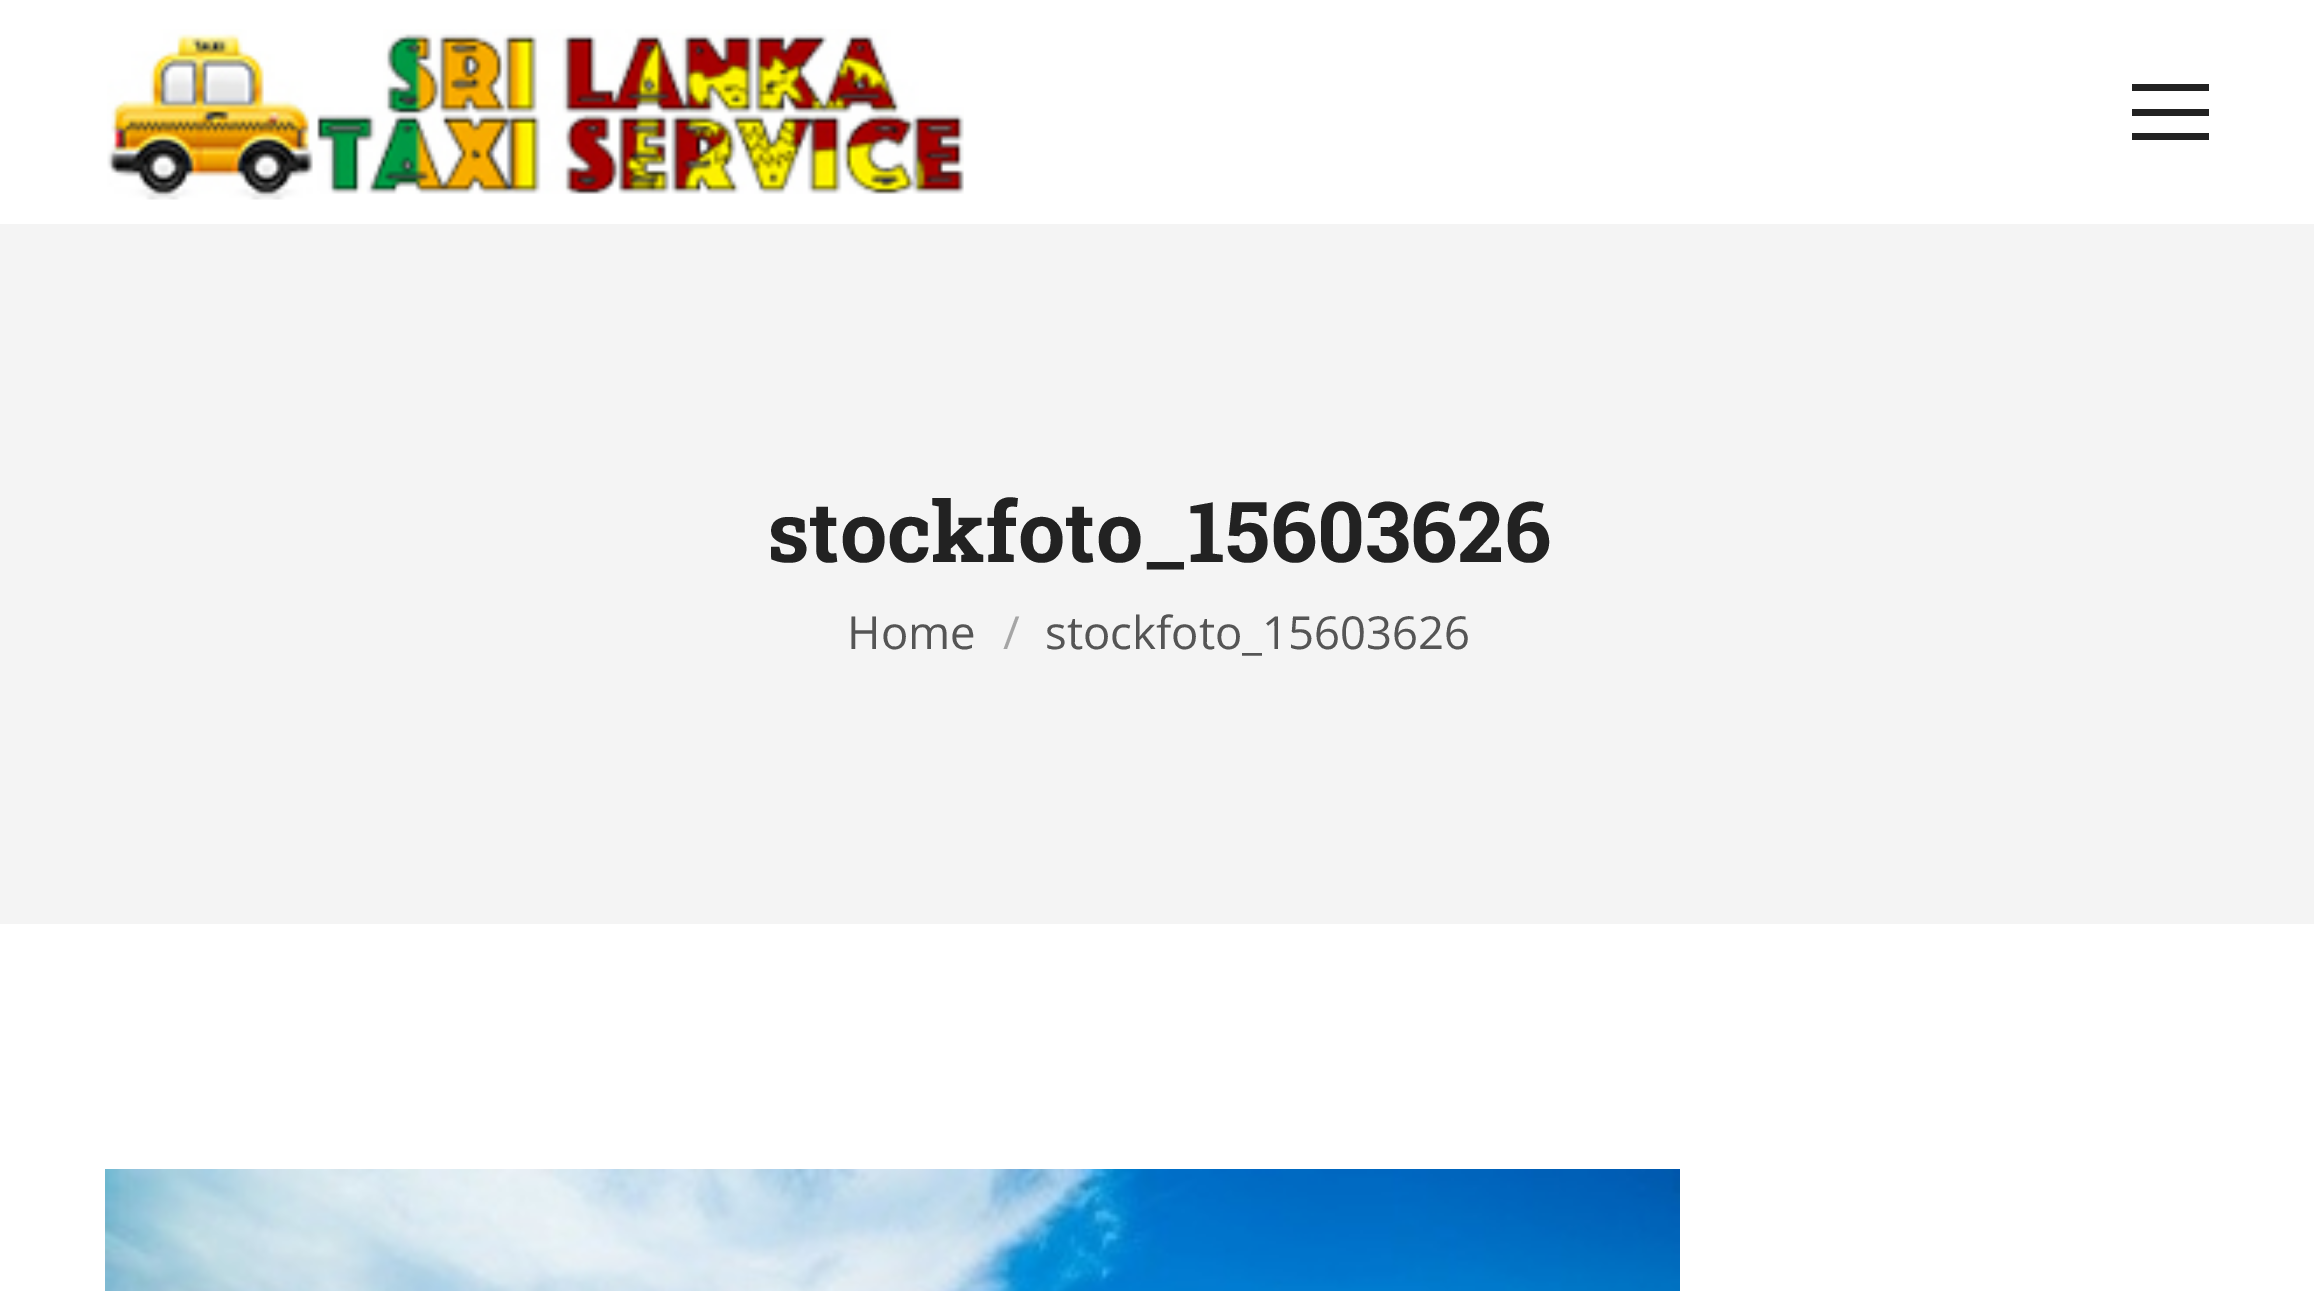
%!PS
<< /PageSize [2314 1291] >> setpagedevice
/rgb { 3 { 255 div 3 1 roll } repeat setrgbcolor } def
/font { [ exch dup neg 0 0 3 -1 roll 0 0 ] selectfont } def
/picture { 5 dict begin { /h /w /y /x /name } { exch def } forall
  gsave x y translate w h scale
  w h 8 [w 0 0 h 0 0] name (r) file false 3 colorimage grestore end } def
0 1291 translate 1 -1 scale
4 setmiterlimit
255 255 255 rgb
0 0 2314 1291 rectfill
(img/1.rgb) 107 29 857 171 picture
[
  [2132 84 77 7 34 34 34]
  [2132 109 77 7 34 34 34]
  [2132 133 77 7 34 34 34]
  [0 224 2314 700 244 244 244]
] { aload pop rgb rectfill } forall
(img/2.rgb) 105 1169 1575 122 picture
/RobotoSlab-Bold 84 font
34 34 34 rgb
767 562 moveto (stockfoto_15603626) show
/OpenSans-Regular 45.5 font
85 85 85 rgb
847 649 moveto (Home) show
165 165 165 rgb
1003 649 moveto (/) show
85 85 85 rgb
1045 649 moveto (stockfoto_15603626) show
showpage
